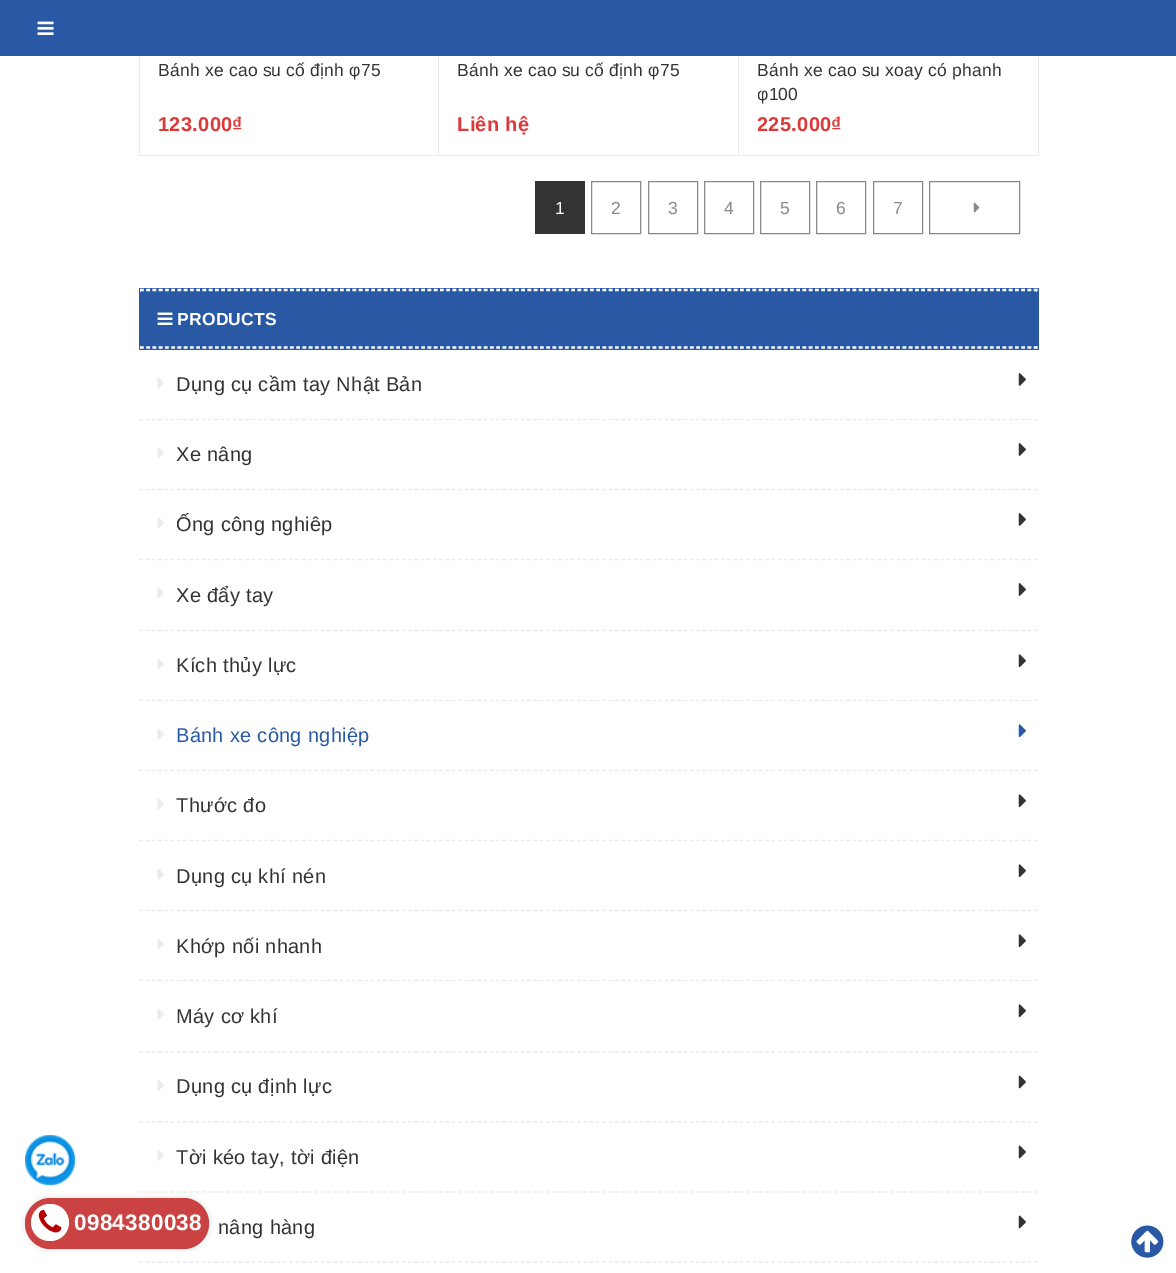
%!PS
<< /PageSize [1176 1273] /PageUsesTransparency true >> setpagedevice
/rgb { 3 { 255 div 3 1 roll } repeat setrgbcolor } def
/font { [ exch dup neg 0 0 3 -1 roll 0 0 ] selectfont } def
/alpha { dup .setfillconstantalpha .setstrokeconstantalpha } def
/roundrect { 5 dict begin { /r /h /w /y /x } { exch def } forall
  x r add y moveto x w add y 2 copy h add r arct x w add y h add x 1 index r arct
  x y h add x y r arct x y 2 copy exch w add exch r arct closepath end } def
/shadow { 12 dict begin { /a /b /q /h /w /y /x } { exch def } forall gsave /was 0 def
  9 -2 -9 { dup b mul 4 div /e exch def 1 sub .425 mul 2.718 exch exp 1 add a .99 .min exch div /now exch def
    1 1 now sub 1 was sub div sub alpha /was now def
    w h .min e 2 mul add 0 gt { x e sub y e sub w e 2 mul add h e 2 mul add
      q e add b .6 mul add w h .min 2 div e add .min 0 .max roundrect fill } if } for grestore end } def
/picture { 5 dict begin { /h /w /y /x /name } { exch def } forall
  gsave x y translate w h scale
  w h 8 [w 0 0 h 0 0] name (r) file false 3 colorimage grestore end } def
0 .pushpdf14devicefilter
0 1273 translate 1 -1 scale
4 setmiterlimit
255 255 255 rgb
0 0 1176 1273 rectfill
41 89 165 rgb
0 0 1176 56 rectfill
(img/1.rgb) 37 21 17 14 picture
(img/2.rgb) 25 1135 50 51 picture
235 235 235 rgb
1.2 setlinewidth
[3.75 2.51] 0 setdash
139 1192 moveto 1039 1192 lineto stroke
(img/11.rgb) 157 1220 7 11 picture
gsave
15 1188 moveto 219 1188 lineto 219 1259 lineto 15 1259 lineto closepath 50.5 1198 moveto 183.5 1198 lineto 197.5 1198 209 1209.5 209 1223.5 curveto 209 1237.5 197.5 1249 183.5 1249 curveto 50.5 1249 lineto 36.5 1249 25 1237.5 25 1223.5 curveto 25 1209.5 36.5 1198 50.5 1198 curveto closepath eoclip newpath
221 221 221 rgb
25 1198 184 51 25.5 3 1 shadow
grestore
0.74 alpha
183 1 0 rgb
25 1198 184 51 25.5 roundrect fill
1 alpha
255 255 255 rgb
31 1204 38 37 18.5 roundrect fill
(img/3.rgb) 38 1209 24 24 picture
[
  [438 56 1 100 235 235 235]
  [139 155 300 1 235 235 235]
  [139 56 1 100 235 235 235]
  [738 56 1 100 235 235 235]
  [439 155 300 1 235 235 235]
  [1038 56 1 100 235 235 235]
  [739 155 300 1 235 235 235]
  [535 181 50 53 51 51 51]
] { aload pop rgb rectfill } forall
137 137 137 rgb
1 setlinewidth
[] 0 setdash
591.5 181.5 49 52 rectstroke
648.5 181.5 49 52 rectstroke
704.5 181.5 49 52 rectstroke
760.5 181.5 49 52 rectstroke
816.5 181.5 49 52 rectstroke
873.5 181.5 49 52 rectstroke
929.5 181.5 90 52 rectstroke
(img/4.rgb) 973 202 7 11 picture
41 89 165 rgb
139 288 900 62 rectfill
255 255 255 rgb
1.2 setlinewidth
[3.75 2.5] 0 setdash
140 289.5 moveto 1037.5 289.5 lineto stroke
1036 289 1 3 rectfill
140 290.5 moveto 1037.5 290.5 lineto stroke
140 289 1 3 rectfill
(img/5.rgb) 157 312 16 13 picture
140 347 moveto 1037.5 347 lineto stroke
1036 346 1 3 rectfill
140 348 moveto 1037.5 348 lineto stroke
140 346 1 3 rectfill
235 235 235 rgb
[3.75 2.51] 0 setdash
139 419.5 moveto 1039 419.5 lineto stroke
(img/6.rgb) 157 377 7 12 picture
(img/7.rgb) 1018 373 8 13 picture
139 489.5 moveto 1039 489.5 lineto stroke
(img/6.rgb) 157 447 7 12 picture
(img/7.rgb) 1018 443 8 13 picture
139 559.5 moveto 1039 559.5 lineto stroke
(img/6.rgb) 157 517 7 12 picture
(img/7.rgb) 1018 513 8 13 picture
139 630.5 moveto 1039 630.5 lineto stroke
(img/6.rgb) 157 587 7 12 picture
(img/7.rgb) 1018 583 8 13 picture
139 700.5 moveto 1039 700.5 lineto stroke
(img/8.rgb) 157 658 7 12 picture
(img/9.rgb) 1018 654 8 14 picture
139 770.5 moveto 1039 770.5 lineto stroke
(img/8.rgb) 157 728 7 12 picture
(img/10.rgb) 1018 724 8 14 picture
139 840.5 moveto 1039 840.5 lineto stroke
(img/8.rgb) 157 798 7 12 picture
(img/9.rgb) 1018 794 8 14 picture
139 910.5 moveto 1039 910.5 lineto stroke
(img/8.rgb) 157 868 7 12 picture
(img/9.rgb) 1018 864 8 14 picture
139 980.5 moveto 1039 980.5 lineto stroke
(img/8.rgb) 157 938 7 12 picture
(img/9.rgb) 1018 934 8 14 picture
139 1052 moveto 1039 1052 lineto stroke
(img/8.rgb) 157 1008 7 12 picture
(img/9.rgb) 1018 1004 8 14 picture
139 1122 moveto 1039 1122 lineto stroke
(img/11.rgb) 157 1080 7 11 picture
(img/12.rgb) 1018 1075 8 14 picture
(img/11.rgb) 157 1150 7 11 picture
(img/12.rgb) 1018 1145 8 14 picture
139 1262 moveto 1039 1262 lineto stroke
(img/12.rgb) 1018 1215 8 14 picture
(img/13.rgb) 1131 1225 33 33 picture
/LiberationSans-Bold 22.5 font
255 255 255 rgb
74 1230 moveto 0.3 0 (0984380038) ashow
/LiberationSans-Regular 17.5 font
51 51 51 rgb
158 76 moveto 0.2 0 (Bánh xe cao su cố định φ75) ashow
/LiberationSans-Bold 20 font
220 58 58 rgb
158 131 moveto 0.3 0 (123.000₫) ashow
/LiberationSans-Regular 17.5 font
51 51 51 rgb
457 76 moveto 0.2 0 (Bánh xe cao su cố định φ75) ashow
/LiberationSans-Bold 20 font
220 58 58 rgb
457 131 moveto 0.3 0 (Liên hệ) ashow
/LiberationSans-Regular 17.5 font
51 51 51 rgb
757 76 moveto 0.2 0 (Bánh xe cao su xoay có phanh) ashow
gsave
758 59 261 49 rectclip
757 100 moveto 0.2 0 (φ100) ashow
grestore
gsave
758 0 261 155 rectclip
/LiberationSans-Bold 20 font
220 58 58 rgb
757 131 moveto 0.3 0 (225.000₫) ashow
grestore
255 255 255 rgb
555 214 moveto 0.3 0 (1) ashow
137 137 137 rgb
611 214 moveto 0.3 0 (2) ashow
668 214 moveto 0.3 0 (3) ashow
724 214 moveto 0.3 0 (4) ashow
780 214 moveto 0.3 0 (5) ashow
836 214 moveto 0.3 0 (6) ashow
893 214 moveto 0.3 0 (7) ashow
/LiberationSans-Bold 17.5 font
255 255 255 rgb
177 325 moveto 0.2 0 (PRODUCTS) ashow
/LiberationSans-Regular 20 font
51 51 51 rgb
176 391 moveto 0.3 0 (Dụng cụ cầm tay Nhật Bản) ashow
176 461 moveto 0.3 0 (Xe nâng) ashow
176 531 moveto 0.3 0 (Ống công nghiêp) ashow
176 602 moveto 0.3 0 (Xe đẩy tay) ashow
176 672 moveto 0.3 0 (Kích thủy lực) ashow
41 89 165 rgb
176 742 moveto 0.3 0 (Bánh xe công nghiệp) ashow
51 51 51 rgb
176 812 moveto 0.3 0 (Thước đo) ashow
176 883 moveto 0.3 0 (Dụng cụ khí nén) ashow
176 953 moveto 0.3 0 (Khớp nối nhanh) ashow
176 1023 moveto 0.3 0 (Máy cơ khí) ashow
176 1093 moveto 0.3 0 (Dụng cụ định lực) ashow
176 1164 moveto 0.3 0 (Tời kéo tay, tời điện) ashow
218 1234 moveto 0.3 0 (nâng hàng) ashow
.poppdf14devicefilter showpage
